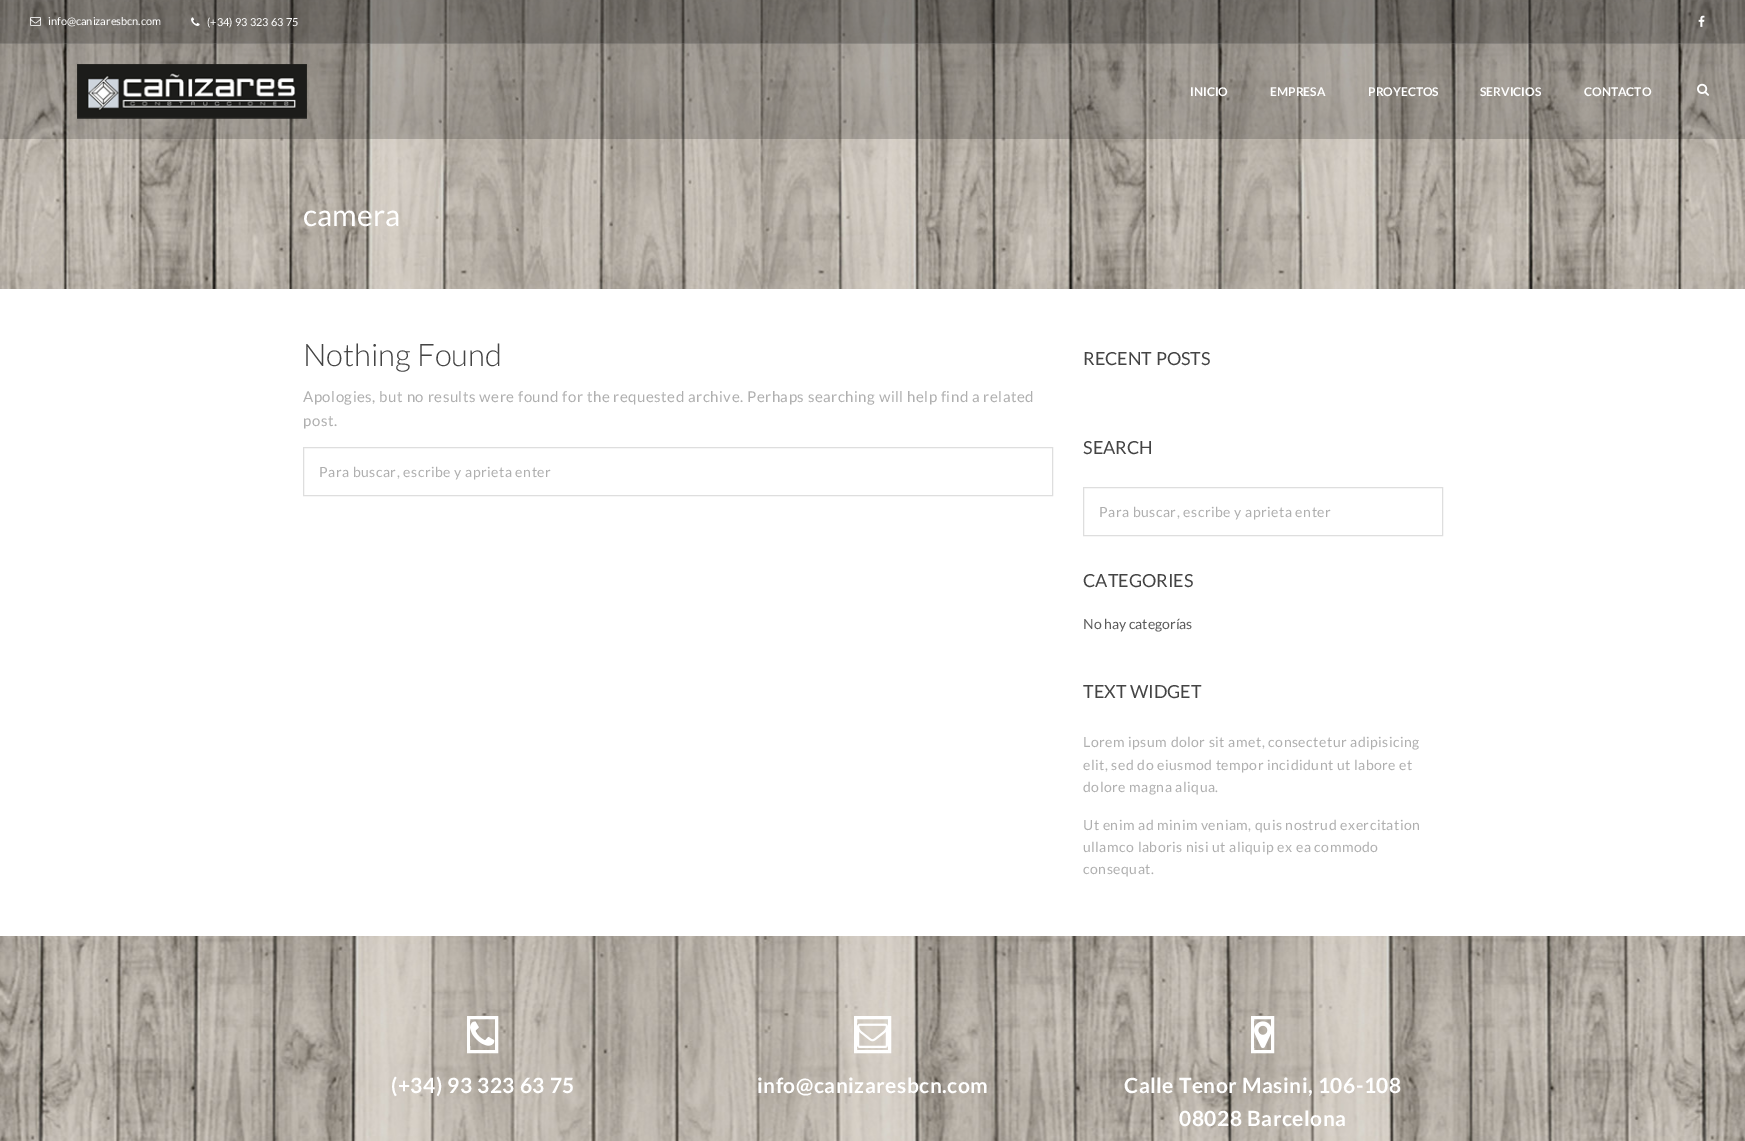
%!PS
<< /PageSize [1745 1141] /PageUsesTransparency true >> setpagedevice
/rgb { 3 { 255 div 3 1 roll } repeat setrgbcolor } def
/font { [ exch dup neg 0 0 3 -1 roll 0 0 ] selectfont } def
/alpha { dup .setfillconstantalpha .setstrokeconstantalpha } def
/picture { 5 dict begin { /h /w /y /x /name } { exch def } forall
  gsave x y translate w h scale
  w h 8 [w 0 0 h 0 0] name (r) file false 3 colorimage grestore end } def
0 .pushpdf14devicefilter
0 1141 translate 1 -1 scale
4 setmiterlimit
255 255 255 rgb
0 0 1745 1141 rectfill
(img/6.rgb) 0 0 1745 289 picture
0.38 alpha
0 0 0 rgb
0 0 1745 44 rectfill
0.11 alpha
255 255 255 rgb
0 43 1745 1 rectfill
1 alpha
(img/1.rgb) 30 17 11 9 picture
(img/2.rgb) 191 17 9 9 picture
(img/3.rgb) 1698 15 7 12 picture
0.19 alpha
0 0 0 rgb
0 44 1745 95 rectfill
1 alpha
(img/4.rgb) 77 64 230 55 picture
(img/5.rgb) 1697 83 12 13 picture
222 222 222 rgb
303.5 447.5 749 48 rectstroke
1083.5 487.5 359 48 rectstroke
(img/7.rgb) 0 936 1745 205 picture
255 255 255 rgb
3 setlinewidth
468.5 1017.5 28 34 rectstroke
(img/8.rgb) 470 1021 25 25 picture
855.5 1017.5 34 34 rectstroke
(img/9.rgb) 857 1023 31 25 picture
1252.5 1017.5 20 34 rectstroke
(img/10.rgb) 1254 1021 17 27 picture
/Lato-Regular 11 font
48 25 moveto (info@canizaresbcn.com) show
207 26 moveto (\(+34\) 93 323 63 75) show
/Lato-Bold 12 font
[
  [(INICIO) 1190 96]
  [(EMPRESA) 1270 96]
  [(PROYECTOS) 1368 96]
  [(SERVICIOS) 1480 96]
  [(CONTACTO) 1584 96]
] { aload pop moveto show } forall
/Lato-Regular 30 font
303 226 moveto (camera) show
/Lato-Light 31 font
68 68 68 rgb
303 366 moveto (Nothing Found) show
/Lato-Regular 15 font
175 175 175 rgb
303 402 moveto 0.5 0 (Apologies, but no results were found for the requested archive. Perhaps searching will help find a related) ashow
303 426 moveto 0.5 0 (post.) ashow
/Lato-Regular 14 font
319 477 moveto 0.5 0 (Para buscar, escribe y aprieta enter) ashow
/Lato-Regular 18 font
68 68 68 rgb
1083 365 moveto (RECENT POSTS) show
1083 454 moveto (SEARCH) show
/Lato-Regular 14 font
175 175 175 rgb
1099 517 moveto 0.5 0 (Para buscar, escribe y aprieta enter) ashow
/Lato-Regular 18 font
68 68 68 rgb
1083 587 moveto (CATEGORIES) show
/Lato-Regular 14 font
90 90 90 rgb
1083 629 moveto (No hay categorías) show
/Lato-Regular 18 font
68 68 68 rgb
1083 698 moveto (TEXT WIDGET) show
/Lato-Regular 14 font
175 175 175 rgb
1083 747 moveto 0.5 0 (Lorem ipsum dolor sit amet, consectetur adipisicing) ashow
1083 770 moveto 0.5 0 (elit, sed do eiusmod tempor incididunt ut labore et) ashow
1083 792 moveto 0.5 0 (dolore magna aliqua.) ashow
1083 830 moveto 0.5 0 (Ut enim ad minim veniam, quis nostrud exercitation) ashow
1083 852 moveto 0.5 0 (ullamco laboris nisi ut aliquip ex ea commodo) ashow
1083 874 moveto 0.5 0 (consequat.) ashow
/Lato-Bold 21 font
255 255 255 rgb
391 1093 moveto 0.5 0 (\(+34\) 93 323 63 75) ashow
757 1093 moveto 0.5 0 (info@canizaresbcn.com) ashow
1124 1093 moveto 0.5 0 (Calle Tenor Masini, 106-108) ashow
1179 1126 moveto 0.5 0 (08028 Barcelona) ashow
.poppdf14devicefilter showpage
